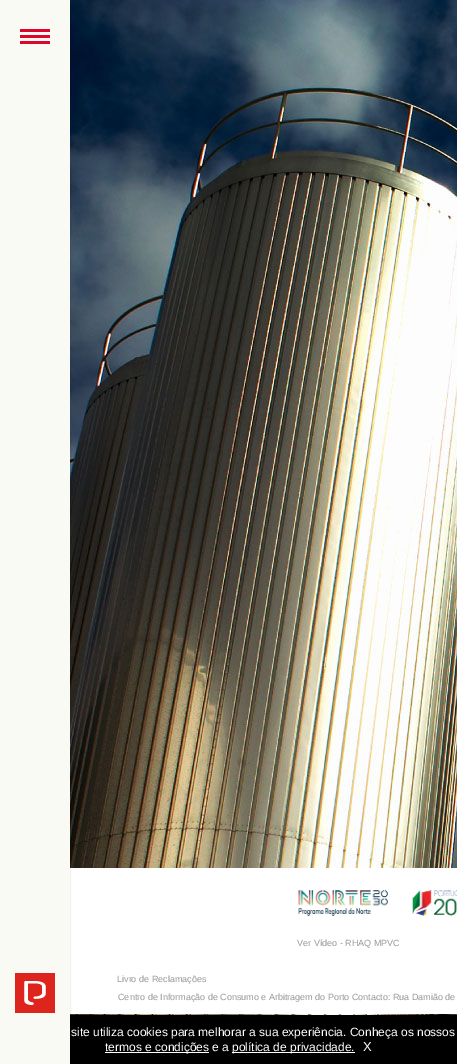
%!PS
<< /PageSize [457 1064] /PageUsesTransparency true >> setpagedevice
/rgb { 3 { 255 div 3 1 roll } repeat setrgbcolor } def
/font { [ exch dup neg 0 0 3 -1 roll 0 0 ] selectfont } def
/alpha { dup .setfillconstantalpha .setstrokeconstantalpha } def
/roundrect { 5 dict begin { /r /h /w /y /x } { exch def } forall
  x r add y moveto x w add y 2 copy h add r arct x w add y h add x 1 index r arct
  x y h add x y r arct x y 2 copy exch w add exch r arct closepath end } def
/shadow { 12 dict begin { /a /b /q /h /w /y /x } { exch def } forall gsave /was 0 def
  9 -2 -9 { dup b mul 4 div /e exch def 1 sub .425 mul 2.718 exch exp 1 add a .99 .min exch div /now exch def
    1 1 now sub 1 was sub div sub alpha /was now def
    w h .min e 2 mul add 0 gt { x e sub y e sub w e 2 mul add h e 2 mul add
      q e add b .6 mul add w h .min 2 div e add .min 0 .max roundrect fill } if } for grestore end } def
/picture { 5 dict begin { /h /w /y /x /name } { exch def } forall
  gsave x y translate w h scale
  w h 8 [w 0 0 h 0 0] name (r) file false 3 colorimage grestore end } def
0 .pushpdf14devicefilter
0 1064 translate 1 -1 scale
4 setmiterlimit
255 255 255 rgb
0 0 457 1064 rectfill
(img/1.rgb) 70 0 387 1015 picture
70 868 387 146 rectfill
0 0 0 rgb
70 1015 387 49 rectfill
5 4 62 1056 0 2 1 shadow
250 250 245 rgb
0 0 70 1064 rectfill
(img/2.rgb) 15 973 40 40 picture
[
  [20 35 30 3 221 5 43]
  [20 29 30 3 221 5 43]
  [20 41 30 3 221 5 43]
] { aload pop rgb rectfill } forall
(img/3.rgb) 298 890 159 26 picture
255 255 255 rgb
105 1052 104 1 rectfill
232 1052 123 1 rectfill
/LiberationSans-Regular 9 font
150 151 152 rgb
[
  [(Ver Vídeo - RHAQ MPVC) 297 946]
  [(Livro de Reclamações) 117 982]
  [(Centro de Informação de Consumo e Arbitragem do Porto Contacto: Rua Damião de) 118 1000]
] { aload pop moveto show } forall
/LiberationSans-Regular 12 font
255 255 255 rgb
[
  [(site utiliza cookies para melhorar a sua experiência. Conheça os nossos) 71 1036]
  [(termos e condições e a) 105 1051]
  [(política de privacidade.) 232 1051]
] { aload pop moveto show } forall
/LiberationSans-Regular 13 font
363 1051 moveto (X) show
.poppdf14devicefilter showpage
